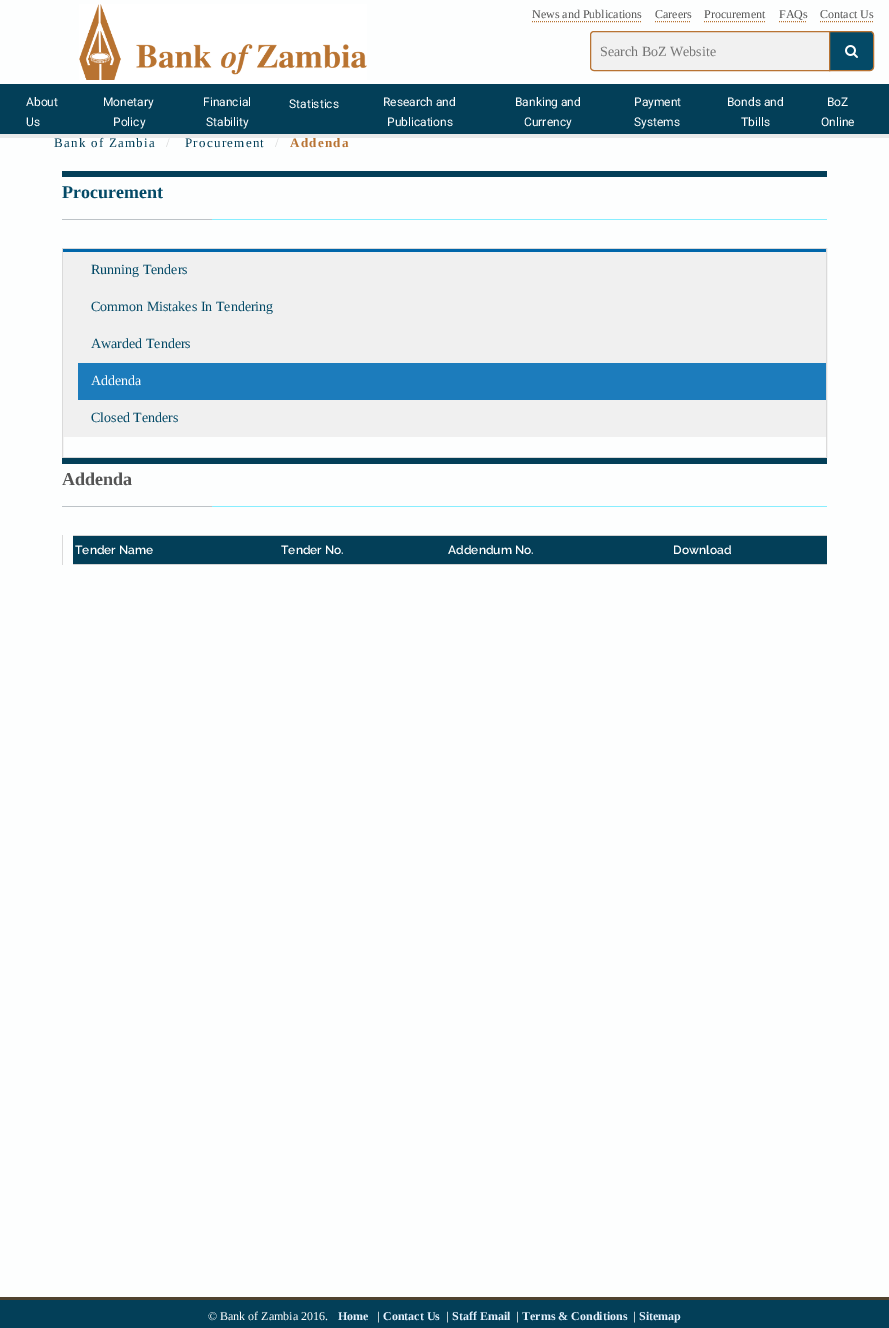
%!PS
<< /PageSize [889 1328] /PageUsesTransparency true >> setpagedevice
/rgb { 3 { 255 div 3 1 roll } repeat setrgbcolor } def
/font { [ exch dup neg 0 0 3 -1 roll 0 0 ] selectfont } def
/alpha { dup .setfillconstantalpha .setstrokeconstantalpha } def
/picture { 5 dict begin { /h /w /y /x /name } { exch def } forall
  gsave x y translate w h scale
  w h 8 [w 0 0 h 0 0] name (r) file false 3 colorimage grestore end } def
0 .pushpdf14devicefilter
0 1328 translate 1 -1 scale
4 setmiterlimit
253 254 254 rgb
0 0 889 1328 rectfill
(img/1.rgb) 79 4 288 76 picture
184 115 51 rgb
[1 1] 0 setdash
532 21.5 moveto 642 21.5 lineto stroke
655 21.5 moveto 691 21.5 lineto stroke
704 21.5 moveto 766 21.5 lineto stroke
779 21.5 moveto 807 21.5 lineto stroke
820 21.5 moveto 874 21.5 lineto stroke
241 241 241 rgb
594 31.5 moveto 829.5 31.5 lineto 829.5 70.5 lineto 594 70.5 lineto 592 70.5 590.5 69 590.5 67 curveto 590.5 35 lineto 590.5 33 592 31.5 594 31.5 curveto closepath gsave fill grestore
184 115 51 rgb
[] 0 setdash
stroke
4 74 103 rgb
829.5 31.5 moveto 870 31.5 lineto 872 31.5 873.5 33 873.5 35 curveto 873.5 67 lineto 873.5 69 872 70.5 870 70.5 curveto 829.5 70.5 lineto closepath gsave fill grestore
184 115 51 rgb
stroke
(img/2.rgb) 845 45 13 13 picture
0.08 alpha
[
  [0 134 889 4 0 0 0]
] { aload pop rgb rectfill } forall
1 alpha
[
  [0 84 889 50 3 63 88]
  [62 171 765 6 3 63 88]
  [212 219 615 1 136 238 255]
  [62 219 150 1 189 195 199]
] { aload pop rgb rectfill } forall
218 218 218 rgb
62.5 248.5 764 209 rectstroke
[
  [63 252 763 185 240 240 240]
  [63 249 763 3 0 102 170]
  [78 363 748 37 28 124 188]
  [62 458 765 6 3 63 88]
  [212 506 615 1 136 238 255]
  [62 506 150 1 189 195 199]
  [62 535 1 30 218 218 218]
] { aload pop rgb rectfill } forall
3 63 88 rgb
75 535 moveto 277 535 lineto 278 535 279 536 279 537 curveto 279 564 lineto 73 564 lineto 73 537 lineto 73 536 74 535 75 535 curveto closepath fill
281 535 moveto 444 535 lineto 445 535 446 536 446 537 curveto 446 564 lineto 279 564 lineto 279 537 lineto 279 536 280 535 281 535 curveto closepath fill
448 535 moveto 669 535 lineto 670 535 671 536 671 537 curveto 671 564 lineto 446 564 lineto 446 537 lineto 446 536 447 535 448 535 curveto closepath fill
673 535 moveto 825 535 lineto 826 535 827 536 827 537 curveto 827 564 lineto 671 564 lineto 671 537 lineto 671 536 672 535 673 535 curveto closepath fill
[
  [73 535 754 1 211 211 211]
  [73 564 754 1 211 211 211]
  [0 1300 889 28 3 63 88]
  [0 1297 889 3 80 66 46]
] { aload pop rgb rectfill } forall
/LiberationSerif-Regular 12 font
85 85 85 rgb
[
  [(News and Publications) 532 18]
  [(Careers) 655 18]
  [(Procurement) 704 18]
  [(FAQs) 779 18]
  [(Contact Us) 820 18]
] { aload pop moveto show } forall
/LiberationSerif-Regular 14 font
117 117 117 rgb
600 56 moveto (Search BoZ Website) show
/Roboto-Regular 12 font
255 255 255 rgb
[
  [(About) 26 106]
  [(Us) 26 126]
  [(Monetary) 103 106]
  [(Policy) 113 126]
  [(Financial) 203 106]
  [(Stability) 206 126]
  [(Statistics) 289 108]
  [(Research and) 383 106]
  [(Publications) 387 126]
  [(Banking and) 515 106]
  [(Currency) 524 126]
  [(Payment) 634 106]
  [(Systems) 634 126]
  [(Bonds and) 727 106]
  [(Tbills) 741 126]
  [(BoZ) 827 106]
  [(Online) 821 126]
] { aload pop moveto show } forall
/LiberationSerif-Regular 13 font
3 63 88 rgb
54 147 moveto 1.25 0 (Bank of Zambia) ashow
213 213 213 rgb
166 147 moveto 1.25 0 (/) ashow
3 63 88 rgb
185 147 moveto 1.25 0 (Procurement) ashow
213 213 213 rgb
275 147 moveto 1.25 0 (/) ashow
/LiberationSerif-Bold 13 font
184 115 51 rgb
290 147 moveto 1.25 0 (Addenda) ashow
/LiberationSerif-Bold 18 font
4 74 103 rgb
62 198 moveto (Procurement) show
/LiberationSerif-Regular 14 font
[
  [(Running Tenders) 91 274]
  [(Common Mistakes In Tendering) 91 311]
  [(Awarded Tenders) 91 348]
] { aload pop moveto show } forall
255 255 255 rgb
91 385 moveto (Addenda) show
4 74 103 rgb
91 422 moveto (Closed Tenders) show
/LiberationSerif-Bold 18 font
85 85 85 rgb
62 485 moveto (Addenda) show
/Raleway-SemiBold 12 font
255 255 255 rgb
[
  [(Tender Name) 75 554]
  [(Tender No.) 281 554]
  [(Addendum No.) 448 554]
  [(Download) 673 554]
] { aload pop moveto show } forall
/LiberationSerif-Regular 12 font
208 1320 moveto (© Bank of Zambia 2016.) show
/LiberationSerif-Bold 12 font
228 241 254 rgb
338 1320 moveto (Home) show
255 255 255 rgb
377 1320 moveto (|) show
228 241 254 rgb
383 1320 moveto (Contact Us) show
255 255 255 rgb
446 1320 moveto (|) show
228 241 254 rgb
452 1320 moveto (Staff Email) show
255 255 255 rgb
516 1320 moveto (|) show
228 241 254 rgb
522 1320 moveto (Terms & Conditions) show
255 255 255 rgb
633 1320 moveto (|) show
228 241 254 rgb
639 1320 moveto (Sitemap) show
.poppdf14devicefilter showpage
